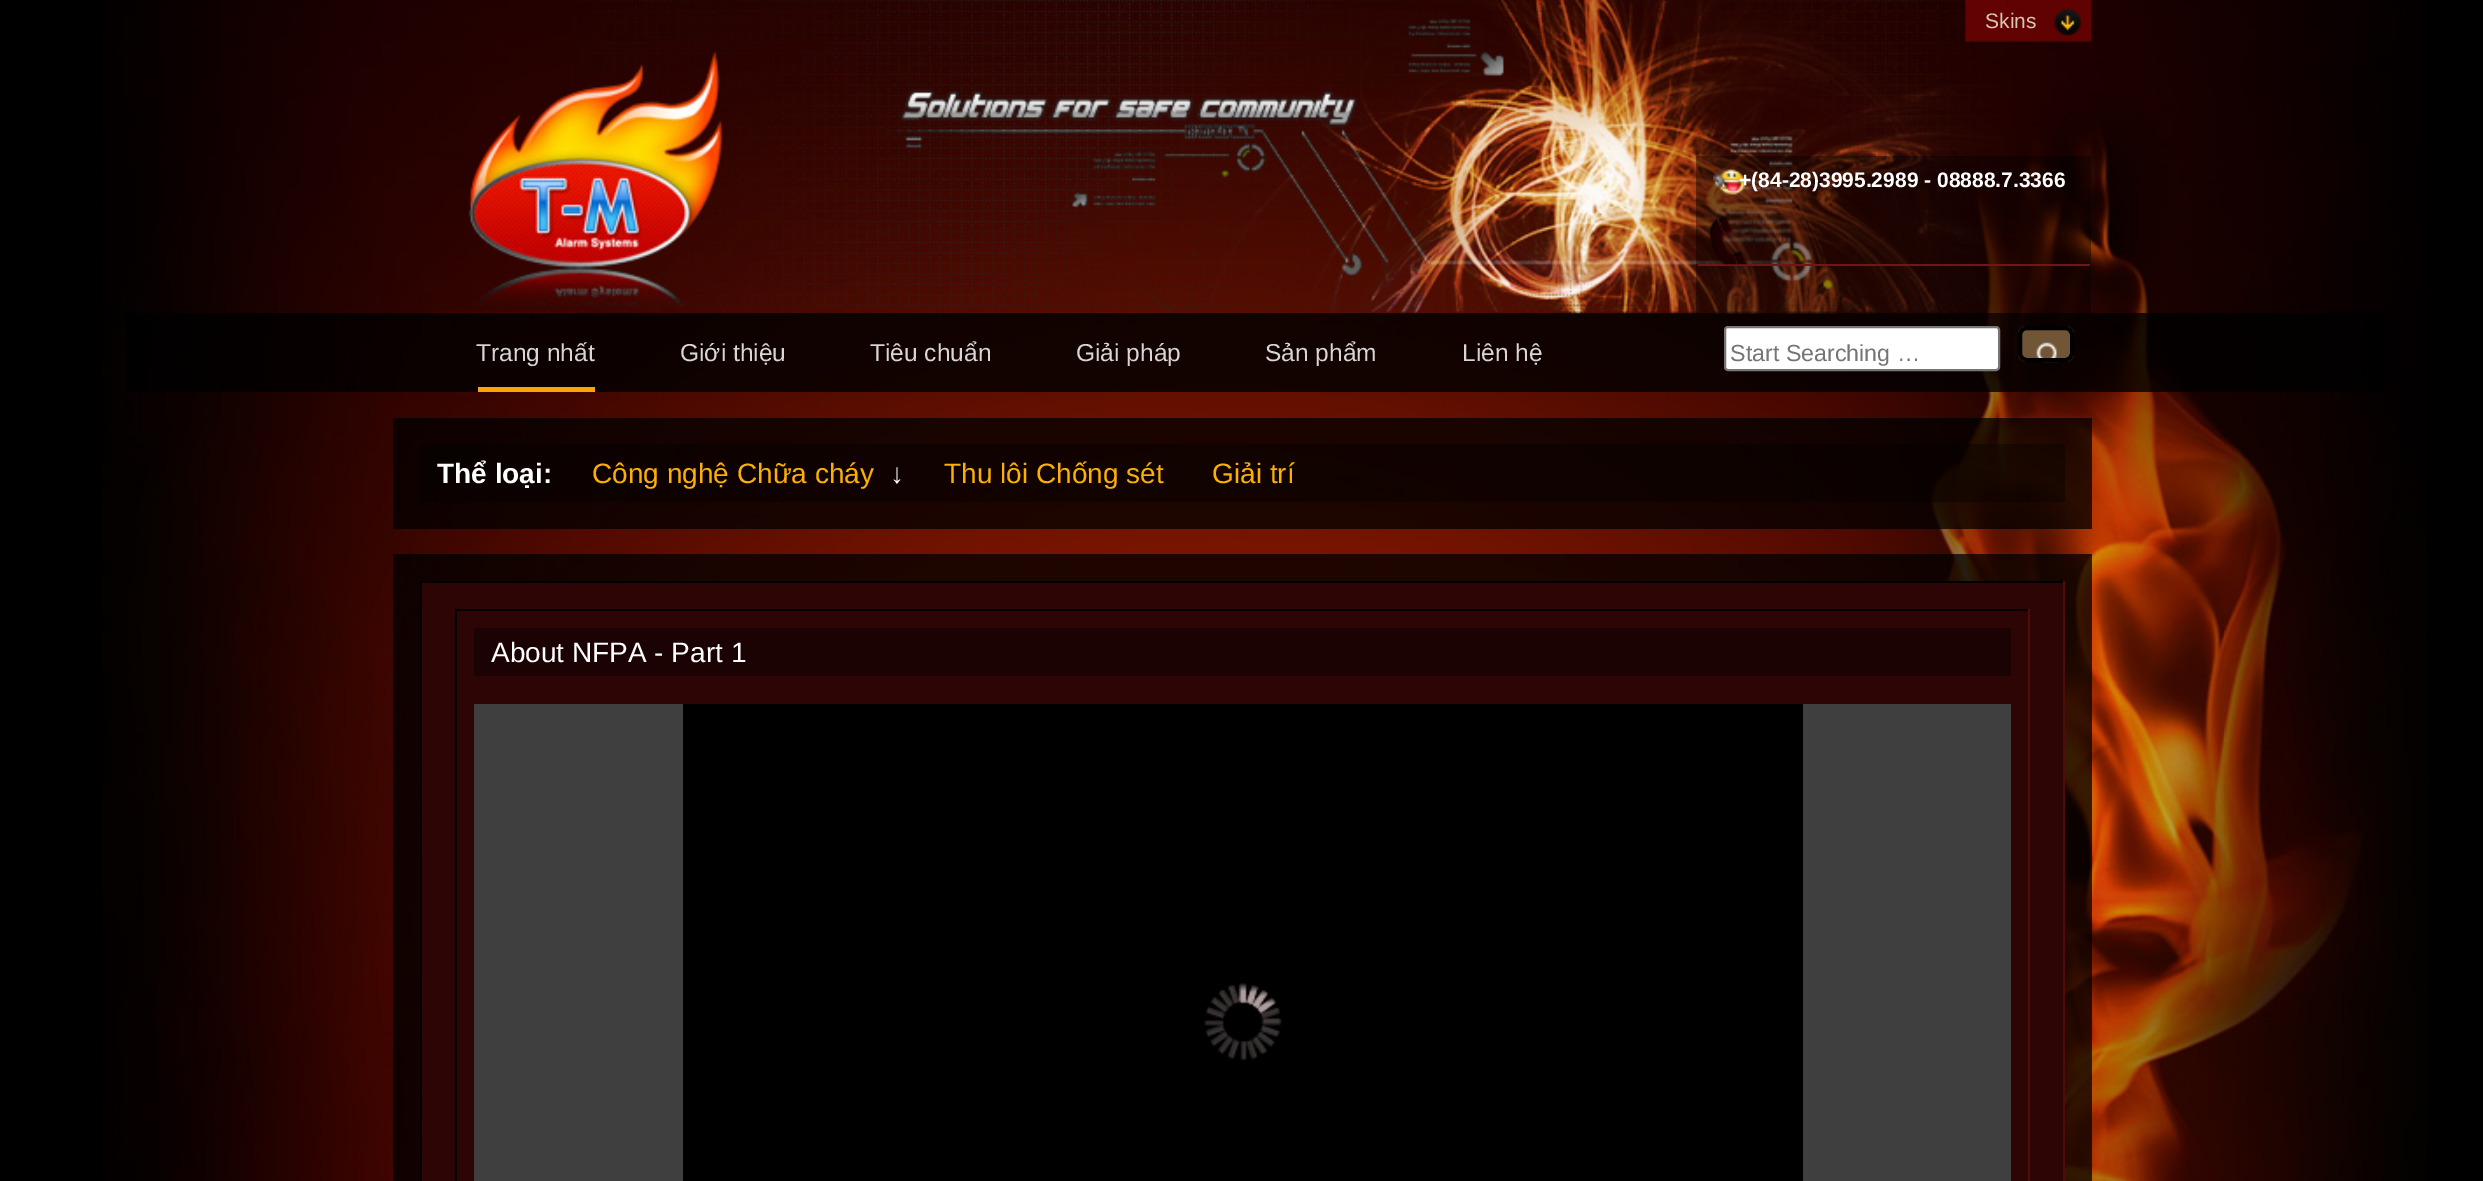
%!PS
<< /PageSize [2483 1181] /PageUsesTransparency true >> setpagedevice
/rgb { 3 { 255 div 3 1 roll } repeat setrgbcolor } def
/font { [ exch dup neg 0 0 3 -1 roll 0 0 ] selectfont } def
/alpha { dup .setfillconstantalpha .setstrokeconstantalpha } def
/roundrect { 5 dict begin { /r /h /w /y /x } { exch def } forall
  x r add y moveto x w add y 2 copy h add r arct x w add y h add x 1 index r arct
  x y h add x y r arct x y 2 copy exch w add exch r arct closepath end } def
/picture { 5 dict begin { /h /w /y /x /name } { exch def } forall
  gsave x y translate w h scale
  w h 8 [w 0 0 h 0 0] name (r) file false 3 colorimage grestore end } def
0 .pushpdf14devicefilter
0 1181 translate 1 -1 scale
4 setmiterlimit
0 0 0 rgb
0 0 2483 1181 rectfill
(img/1.rgb) 102 0 2326 1181 picture
0.8 alpha
126 313 2260 79 rectfill
1 alpha
(img/3.rgb) 424 0 1618 314 picture
(img/2.rgb) 1963 0 129 44 picture
0.4 alpha
1696 156 395 157 rectfill
1 alpha
(img/4.rgb) 1713 169 34 28 picture
114 21 21 rgb
1698 264 392 2 rectfill
(img/5.rgb) 1708 216 41 49 picture
255 255 255 rgb
1725 327 274 43 3 roundrect gsave fill grestore
118 118 118 rgb
2 setlinewidth
stroke
112 85 54 rgb
2018 326 56 36 9 roundrect fill
(img/6.rgb) 2036 342 23 21 picture
0 0 0 rgb
4 setlinewidth
2020 328 52 32 7 roundrect stroke
[
  [478 387 117 5 251 164 7]
] { aload pop rgb rectfill } forall
0.75 alpha
[
  [393 418 1699 111 0 0 0]
] { aload pop rgb rectfill } forall
0.38 alpha
[
  [420 444 1645 58 0 0 0]
] { aload pop rgb rectfill } forall
0.75 alpha
[
  [393 554 1699 627 0 0 0]
] { aload pop rgb rectfill } forall
1 alpha
[
  [422 583 1641 598 45 5 5]
  [420 581 1645 2 0 0 0]
  [2063 581 2 600 79 12 12]
  [420 581 2 600 0 0 0]
  [455 609 1575 2 0 0 0]
  [2028 609 2 572 79 12 12]
  [455 609 2 572 0 0 0]
  [474 628 1537 48 28 3 3]
  [474 704 1537 477 63 63 63]
  [683 704 1120 477 0 0 0]
] { aload pop rgb rectfill } forall
(img/7.rgb) 1204 983 78 78 picture
/LiberationSans-Regular 21 font
214 198 182 rgb
1985 28 moveto (Skins) show
/LiberationSans-Bold 21 font
255 255 255 rgb
1739 187 moveto (+\(84-28\)3995.2989 - 08888.7.3366) show
/LiberationSans-Regular 24.5 font
216 214 214 rgb
[
  [(Trang nhất) 476 361]
  [(Giới thiệu) 680 361]
  [(Tiêu chuẩn) 870 361]
  [(Giải pháp) 1076 361]
  [(Sản phẩm) 1265 361]
  [(Liên hệ) 1462 361]
] { aload pop moveto show } forall
/LiberationSans-Regular 23.25 font
117 117 117 rgb
1730 361 moveto (Start Searching …) show
/LiberationSans-Bold 28 font
255 255 255 rgb
437 483 moveto (Thể loại:) show
/LiberationSans-Regular 28 font
253 176 4 rgb
592 483 moveto (Công nghệ Chữa cháy) show
255 255 255 rgb
890 483 moveto (↓) show
253 176 4 rgb
944 483 moveto (Thu lôi Chống sét) show
1212 483 moveto (Giải trí) show
255 255 255 rgb
491 662 moveto (About NFPA - Part 1) show
.poppdf14devicefilter showpage
